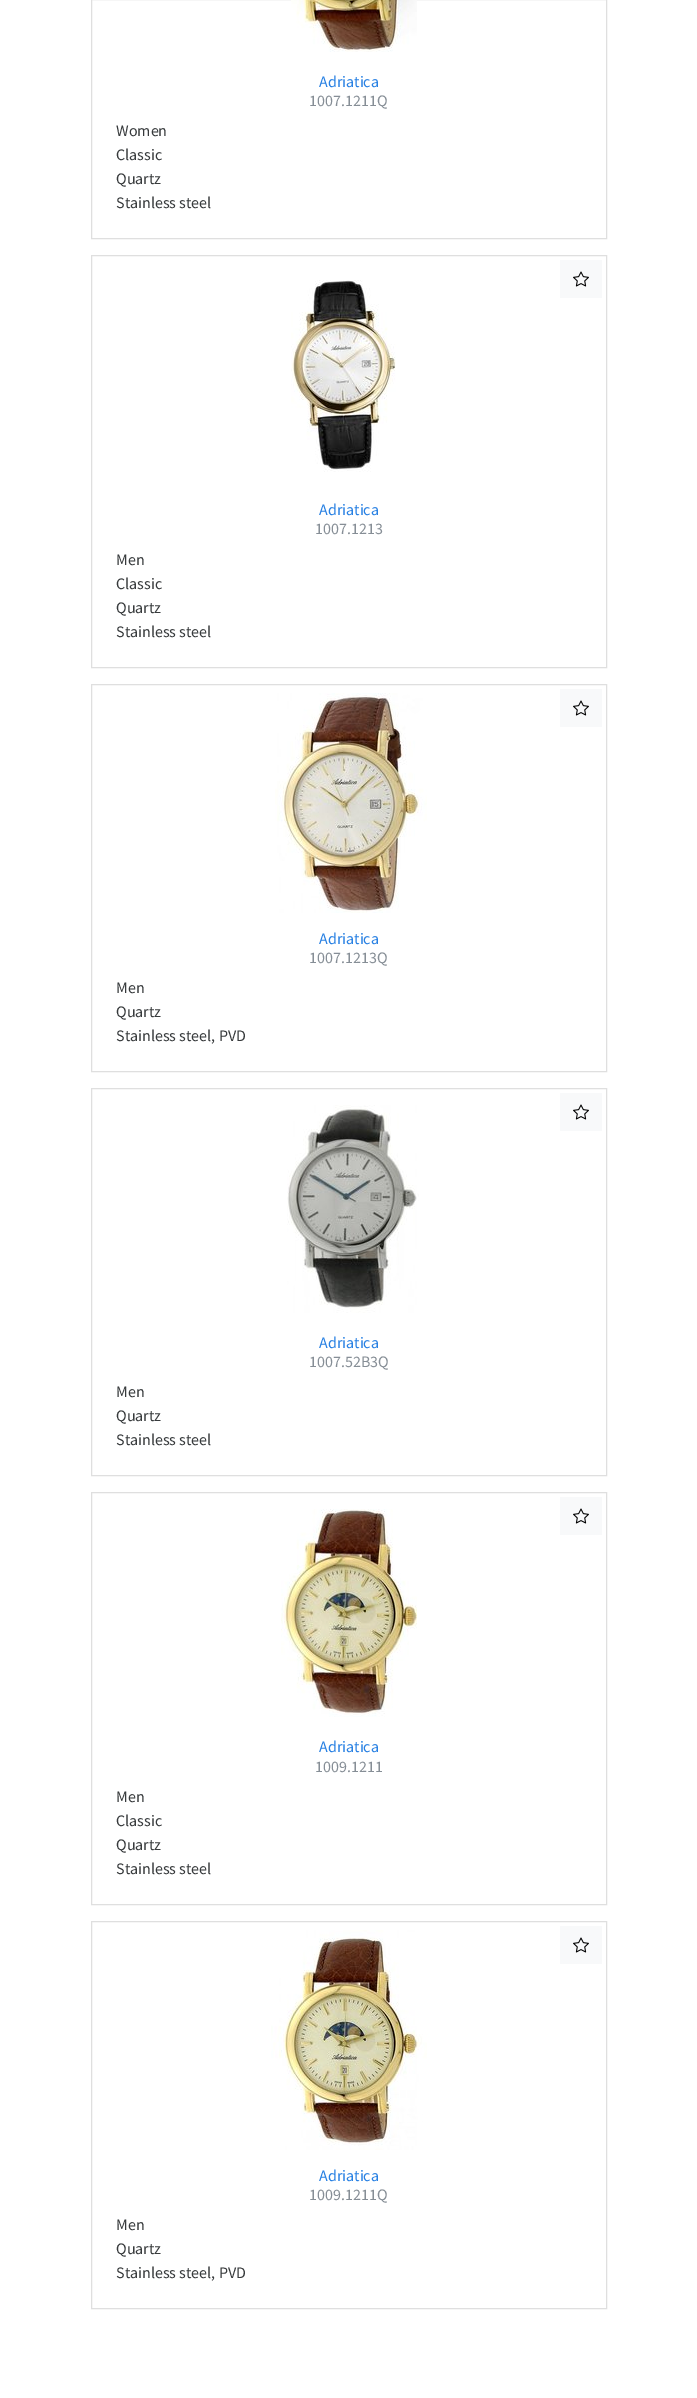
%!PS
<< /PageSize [697 2398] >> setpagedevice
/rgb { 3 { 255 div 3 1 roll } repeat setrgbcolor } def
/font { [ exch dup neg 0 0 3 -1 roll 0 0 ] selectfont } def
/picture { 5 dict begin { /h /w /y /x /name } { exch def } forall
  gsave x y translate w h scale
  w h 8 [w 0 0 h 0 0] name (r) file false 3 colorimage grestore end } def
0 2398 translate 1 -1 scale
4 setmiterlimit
255 255 255 rgb
0 0 697 2398 rectfill
223 223 223 rgb
91.5 -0.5 515 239 rectstroke
(img/1.rgb) 291 0 126 52 picture
91.5 255.5 515 412 rectstroke
(img/2.rgb) 291 280 105 192 picture
248 249 250 rgb
560 260 42 38 rectfill
(img/3.rgb) 573 271 16 16 picture
223 223 223 rgb
91.5 684.5 515 387 rectstroke
(img/4.rgb) 275 693 152 220 picture
248 249 250 rgb
560 689 42 38 rectfill
(img/3.rgb) 573 700 16 16 picture
223 223 223 rgb
91.5 1088.5 515 387 rectstroke
(img/5.rgb) 287 1105 132 208 picture
248 249 250 rgb
560 1093 42 38 rectfill
(img/3.rgb) 573 1104 16 16 picture
223 223 223 rgb
91.5 1492.5 515 412 rectstroke
(img/6.rgb) 281 1509 136 208 picture
248 249 250 rgb
560 1497 42 38 rectfill
(img/3.rgb) 573 1508 16 16 picture
223 223 223 rgb
91.5 1921.5 515 387 rectstroke
(img/7.rgb) 271 1930 156 220 picture
248 249 250 rgb
560 1926 42 38 rectfill
(img/3.rgb) 573 1937 16 16 picture
/SourceSansPro-Regular 16 font
39 128 227 rgb
319 87 moveto (Adriatica) show
134 142 150 rgb
309 106 moveto (1007.1211Q) show
55 58 60 rgb
[
  [(Women) 116 136]
  [(Classic) 116 160]
  [(Quartz) 116 184]
  [(Stainless steel) 116 208]
] { aload pop moveto show } forall
39 128 227 rgb
319 515 moveto (Adriatica) show
134 142 150 rgb
315 534 moveto (1007.1213) show
55 58 60 rgb
[
  [(Men) 116 565]
  [(Classic) 116 589]
  [(Quartz) 116 613]
  [(Stainless steel) 116 637]
] { aload pop moveto show } forall
39 128 227 rgb
319 944 moveto (Adriatica) show
134 142 150 rgb
309 963 moveto (1007.1213Q) show
55 58 60 rgb
[
  [(Men) 116 993]
  [(Quartz) 116 1017]
  [(Stainless steel, PVD) 116 1041]
] { aload pop moveto show } forall
39 128 227 rgb
319 1348 moveto (Adriatica) show
134 142 150 rgb
309 1367 moveto (1007.52B3Q) show
55 58 60 rgb
[
  [(Men) 116 1397]
  [(Quartz) 116 1421]
  [(Stainless steel) 116 1445]
] { aload pop moveto show } forall
39 128 227 rgb
319 1752 moveto (Adriatica) show
134 142 150 rgb
315 1772 moveto (1009.1211) show
55 58 60 rgb
[
  [(Men) 116 1802]
  [(Classic) 116 1826]
  [(Quartz) 116 1850]
  [(Stainless steel) 116 1874]
] { aload pop moveto show } forall
39 128 227 rgb
319 2181 moveto (Adriatica) show
134 142 150 rgb
309 2200 moveto (1009.1211Q) show
55 58 60 rgb
[
  [(Men) 116 2230]
  [(Quartz) 116 2254]
  [(Stainless steel, PVD) 116 2278]
] { aload pop moveto show } forall
showpage
